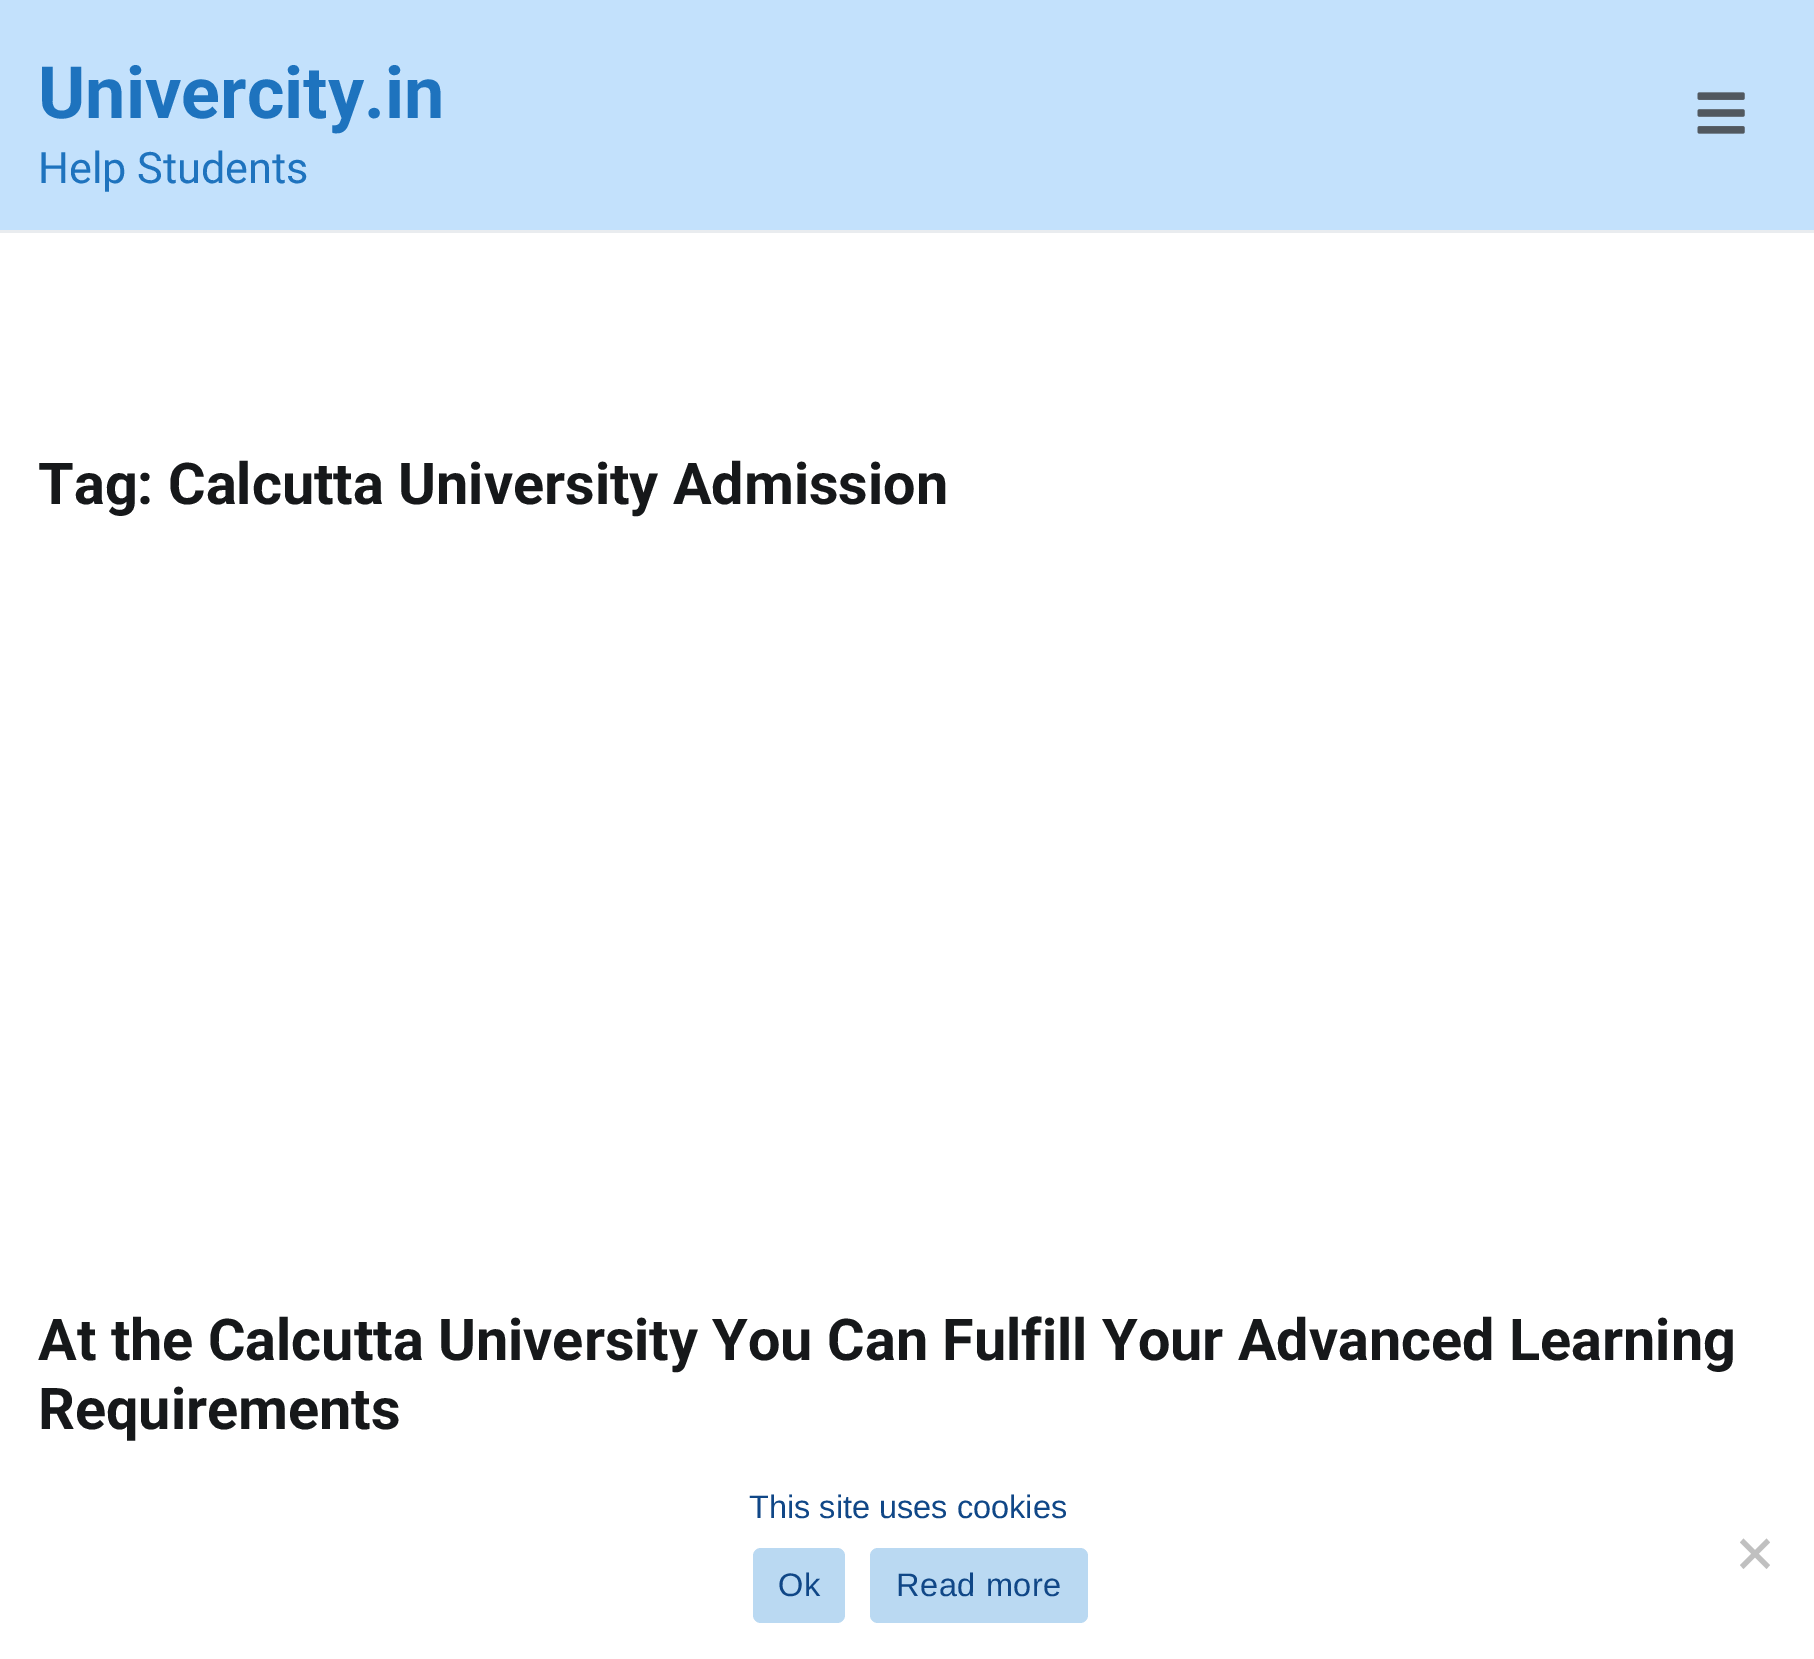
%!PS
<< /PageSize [1814 1659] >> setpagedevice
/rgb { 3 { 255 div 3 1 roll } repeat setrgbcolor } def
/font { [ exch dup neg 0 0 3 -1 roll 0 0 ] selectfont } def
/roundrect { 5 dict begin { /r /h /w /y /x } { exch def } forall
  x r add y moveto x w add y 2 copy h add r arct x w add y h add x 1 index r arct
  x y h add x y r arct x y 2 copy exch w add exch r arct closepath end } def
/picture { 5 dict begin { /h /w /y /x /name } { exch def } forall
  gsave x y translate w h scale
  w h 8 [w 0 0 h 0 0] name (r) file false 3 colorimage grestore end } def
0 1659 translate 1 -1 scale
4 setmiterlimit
255 255 255 rgb
0 0 1814 1659 rectfill
195 225 252 rgb
0 0 1814 230 rectfill
233 236 239 rgb
0 230 1814 3 rectfill
(img/1.rgb) 1697 92 48 42 picture
192 192 192 rgb
1766.5 1538.5 moveto 1770 1542.5 lineto 1743.5 1569 lineto 1740 1565 lineto closepath fill
1740 1542.5 moveto 1743.5 1538.5 lineto 1770 1565 lineto 1766.5 1569 lineto closepath fill
186 217 242 rgb
753 1548 92 75 8 roundrect fill
870 1548 218 75 8 roundrect fill
/Roboto-Bold 72 font
30 115 190 rgb
38 118 moveto (Univercity.in) show
/Roboto-Regular 43.25 font
38 183 moveto (Help Students) show
/Roboto-Bold 57.6 font
22 24 26 rgb
[
  [(Tag: Calcutta University Admission) 38 504]
  [(At the Calcutta University You Can Fulfill Your Advanced Learning) 38 1360]
  [(Requirements) 38 1429]
] { aload pop moveto show } forall
/LiberationSans-Regular 32.5 font
16 71 135 rgb
749 1518 moveto (This site uses cookies) show
778 1596 moveto 0.6 0 (Ok) ashow
896 1596 moveto 0.6 0 (Read more) ashow
showpage
